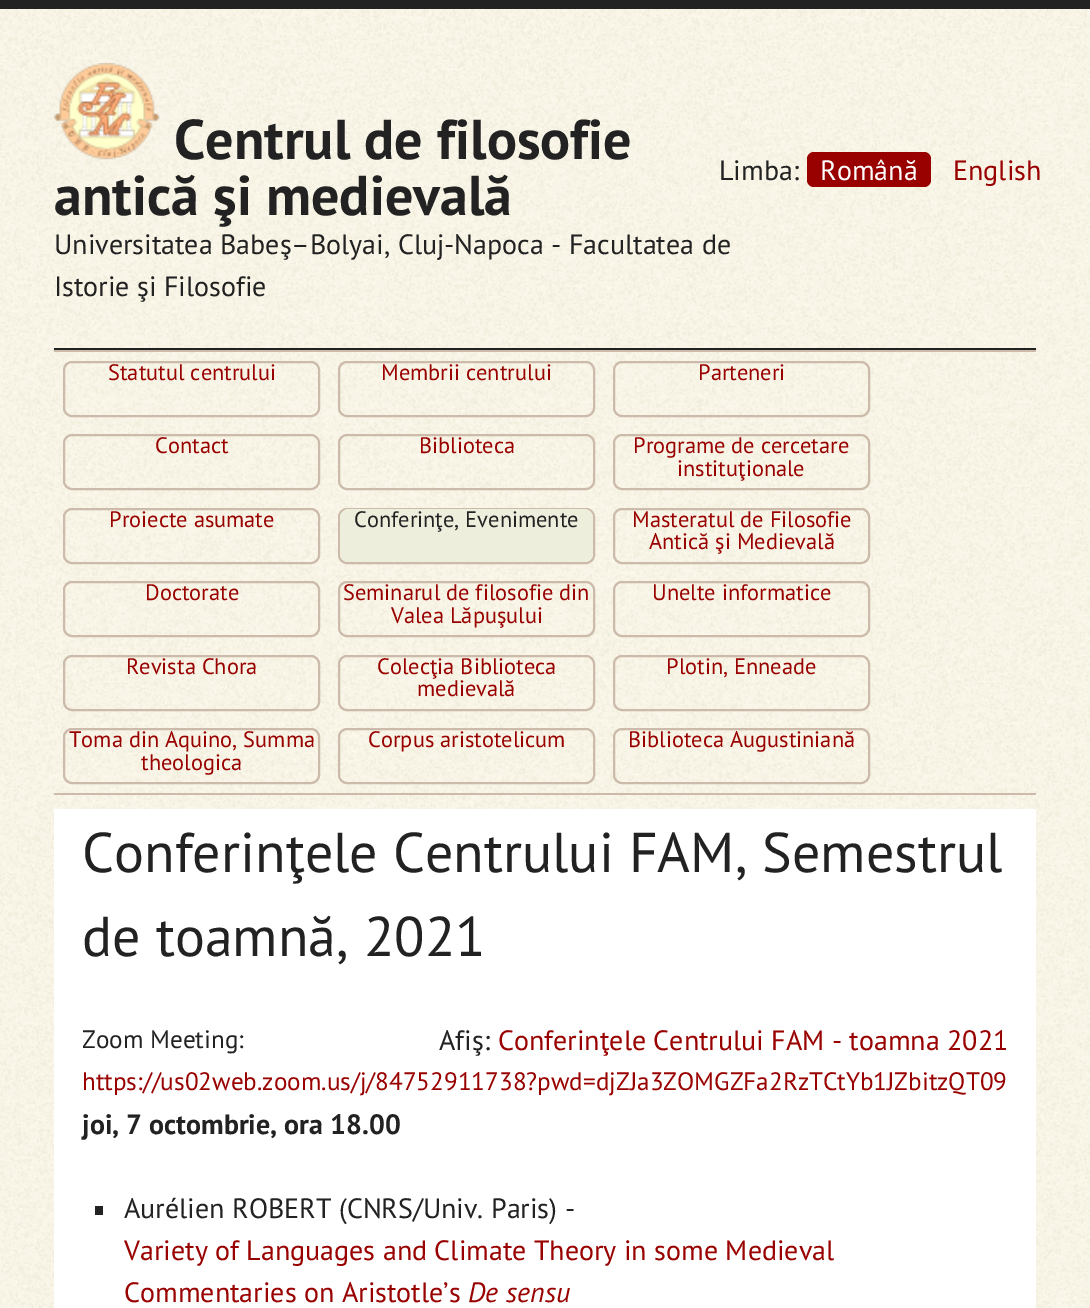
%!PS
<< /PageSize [1090 1308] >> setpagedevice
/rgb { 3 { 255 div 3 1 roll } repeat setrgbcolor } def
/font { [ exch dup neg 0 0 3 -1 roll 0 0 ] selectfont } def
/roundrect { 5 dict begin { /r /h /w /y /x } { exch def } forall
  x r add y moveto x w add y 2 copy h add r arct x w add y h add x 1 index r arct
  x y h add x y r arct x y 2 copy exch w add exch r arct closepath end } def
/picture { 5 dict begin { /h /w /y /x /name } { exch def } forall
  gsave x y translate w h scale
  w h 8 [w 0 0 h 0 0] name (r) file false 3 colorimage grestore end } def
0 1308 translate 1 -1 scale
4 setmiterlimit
255 255 255 rgb
0 0 1090 1308 rectfill
(img/1.rgb) 0 9 1090 1299 picture
34 34 34 rgb
0 0 1090 9 rectfill
54 348 982 2 rectfill
(img/2.rgb) 54 63 106 97 picture
153 0 0 rgb
807 152 124 35 7 roundrect fill
[
  [54 809 982 499 255 255 255]
  [95 1206 8 9 34 34 34]
  [54 350 982 2 204 187 170]
  [54 793 982 2 204 187 170]
] { aload pop rgb rectfill } forall
2 setlinewidth
64 362 255 54 8 roundrect stroke
339 362 255 54 8 roundrect stroke
614 362 255 54 8 roundrect stroke
64 435 255 54 8 roundrect stroke
339 435 255 54 8 roundrect stroke
614 435 255 54 8 roundrect stroke
64 509 255 54 8 roundrect stroke
339 509 255 54 8 roundrect stroke
238 238 221 rgb
340 509 253 53 9 roundrect fill
204 187 170 rgb
614 509 255 54 8 roundrect stroke
64 582 255 54 8 roundrect stroke
339 582 255 54 8 roundrect stroke
614 582 255 54 8 roundrect stroke
64 656 255 54 8 roundrect stroke
339 656 255 54 8 roundrect stroke
614 656 255 54 8 roundrect stroke
64 729 255 54 8 roundrect stroke
339 729 255 54 8 roundrect stroke
614 729 255 54 8 roundrect stroke
/PTSans-Bold 56 font
34 34 34 rgb
174 159 moveto (Centrul de filosofie) show
54 215 moveto (antică şi medievală) show
/PTSans-Regular 28 font
[
  [(Universitatea Babeş–Bolyai, Cluj-Napoca - Facultatea de) 54 254]
  [(Istorie şi Filosofie) 54 296]
  [(Limba:) 719 180]
] { aload pop moveto show } forall
255 255 255 rgb
820 180 moveto (Română) show
153 0 0 rgb
953 180 moveto (English) show
/PTSans-Regular 56 font
34 34 34 rgb
82 872 moveto (Conferinţele Centrului FAM, Semestrul) show
82 956 moveto (de toamnă, 2021) show
/PTSans-Regular 25.2 font
82 1048 moveto (Zoom Meeting:) show
153 0 0 rgb
82 1090 moveto (https://us02web.zoom.us/j/84752911738?pwd=djZJa3ZOMGZFa2RzTCtYb1JZbitzQT09) show
/PTSans-Regular 28 font
34 34 34 rgb
439 1050 moveto (Afiş:) show
153 0 0 rgb
498 1050 moveto (Conferinţele Centrului FAM - toamna 2021) show
/PTSans-Bold 28 font
34 34 34 rgb
82 1134 moveto (joi, 7 octombrie, ora 18.00) show
/PTSans-Regular 28 font
124 1218 moveto (Aurélien ROBERT \(CNRS/Univ. Paris\) -) show
153 0 0 rgb
124 1260 moveto (Variety of Languages and Climate Theory in some Medieval) show
124 1302 moveto (Commentaries on Aristotle’s) show
/PTSans-Italic 28 font
468 1302 moveto (De sensu) show
/PTSans-Regular 22.4 font
[
  [(Statutul centrului) 108 380]
  [(Membrii centrului) 381 380]
  [(Parteneri) 698 380]
  [(Contact) 155 453]
  [(Biblioteca) 419 453]
  [(Programe de cercetare) 633 453]
  [(instituţionale) 677 476]
  [(Proiecte asumate) 109 527]
] { aload pop moveto show } forall
34 34 34 rgb
354 527 moveto (Conferinţe, Evenimente) show
153 0 0 rgb
[
  [(Masteratul de Filosofie) 632 527]
  [(Antică şi Medievală) 649 549]
  [(Doctorate) 145 600]
  [(Seminarul de filosofie din) 343 600]
  [(Valea Lăpuşului) 391 623]
  [(Unelte informatice) 652 600]
  [(Revista Chora) 126 674]
  [(Colecţia Biblioteca) 377 674]
  [(medievală) 417 696]
  [(Plotin, Enneade) 666 674]
  [(Toma din Aquino, Summa) 69 747]
  [(theologica) 141 770]
  [(Corpus aristotelicum) 368 747]
  [(Biblioteca Augustiniană) 628 747]
] { aload pop moveto show } forall
showpage
